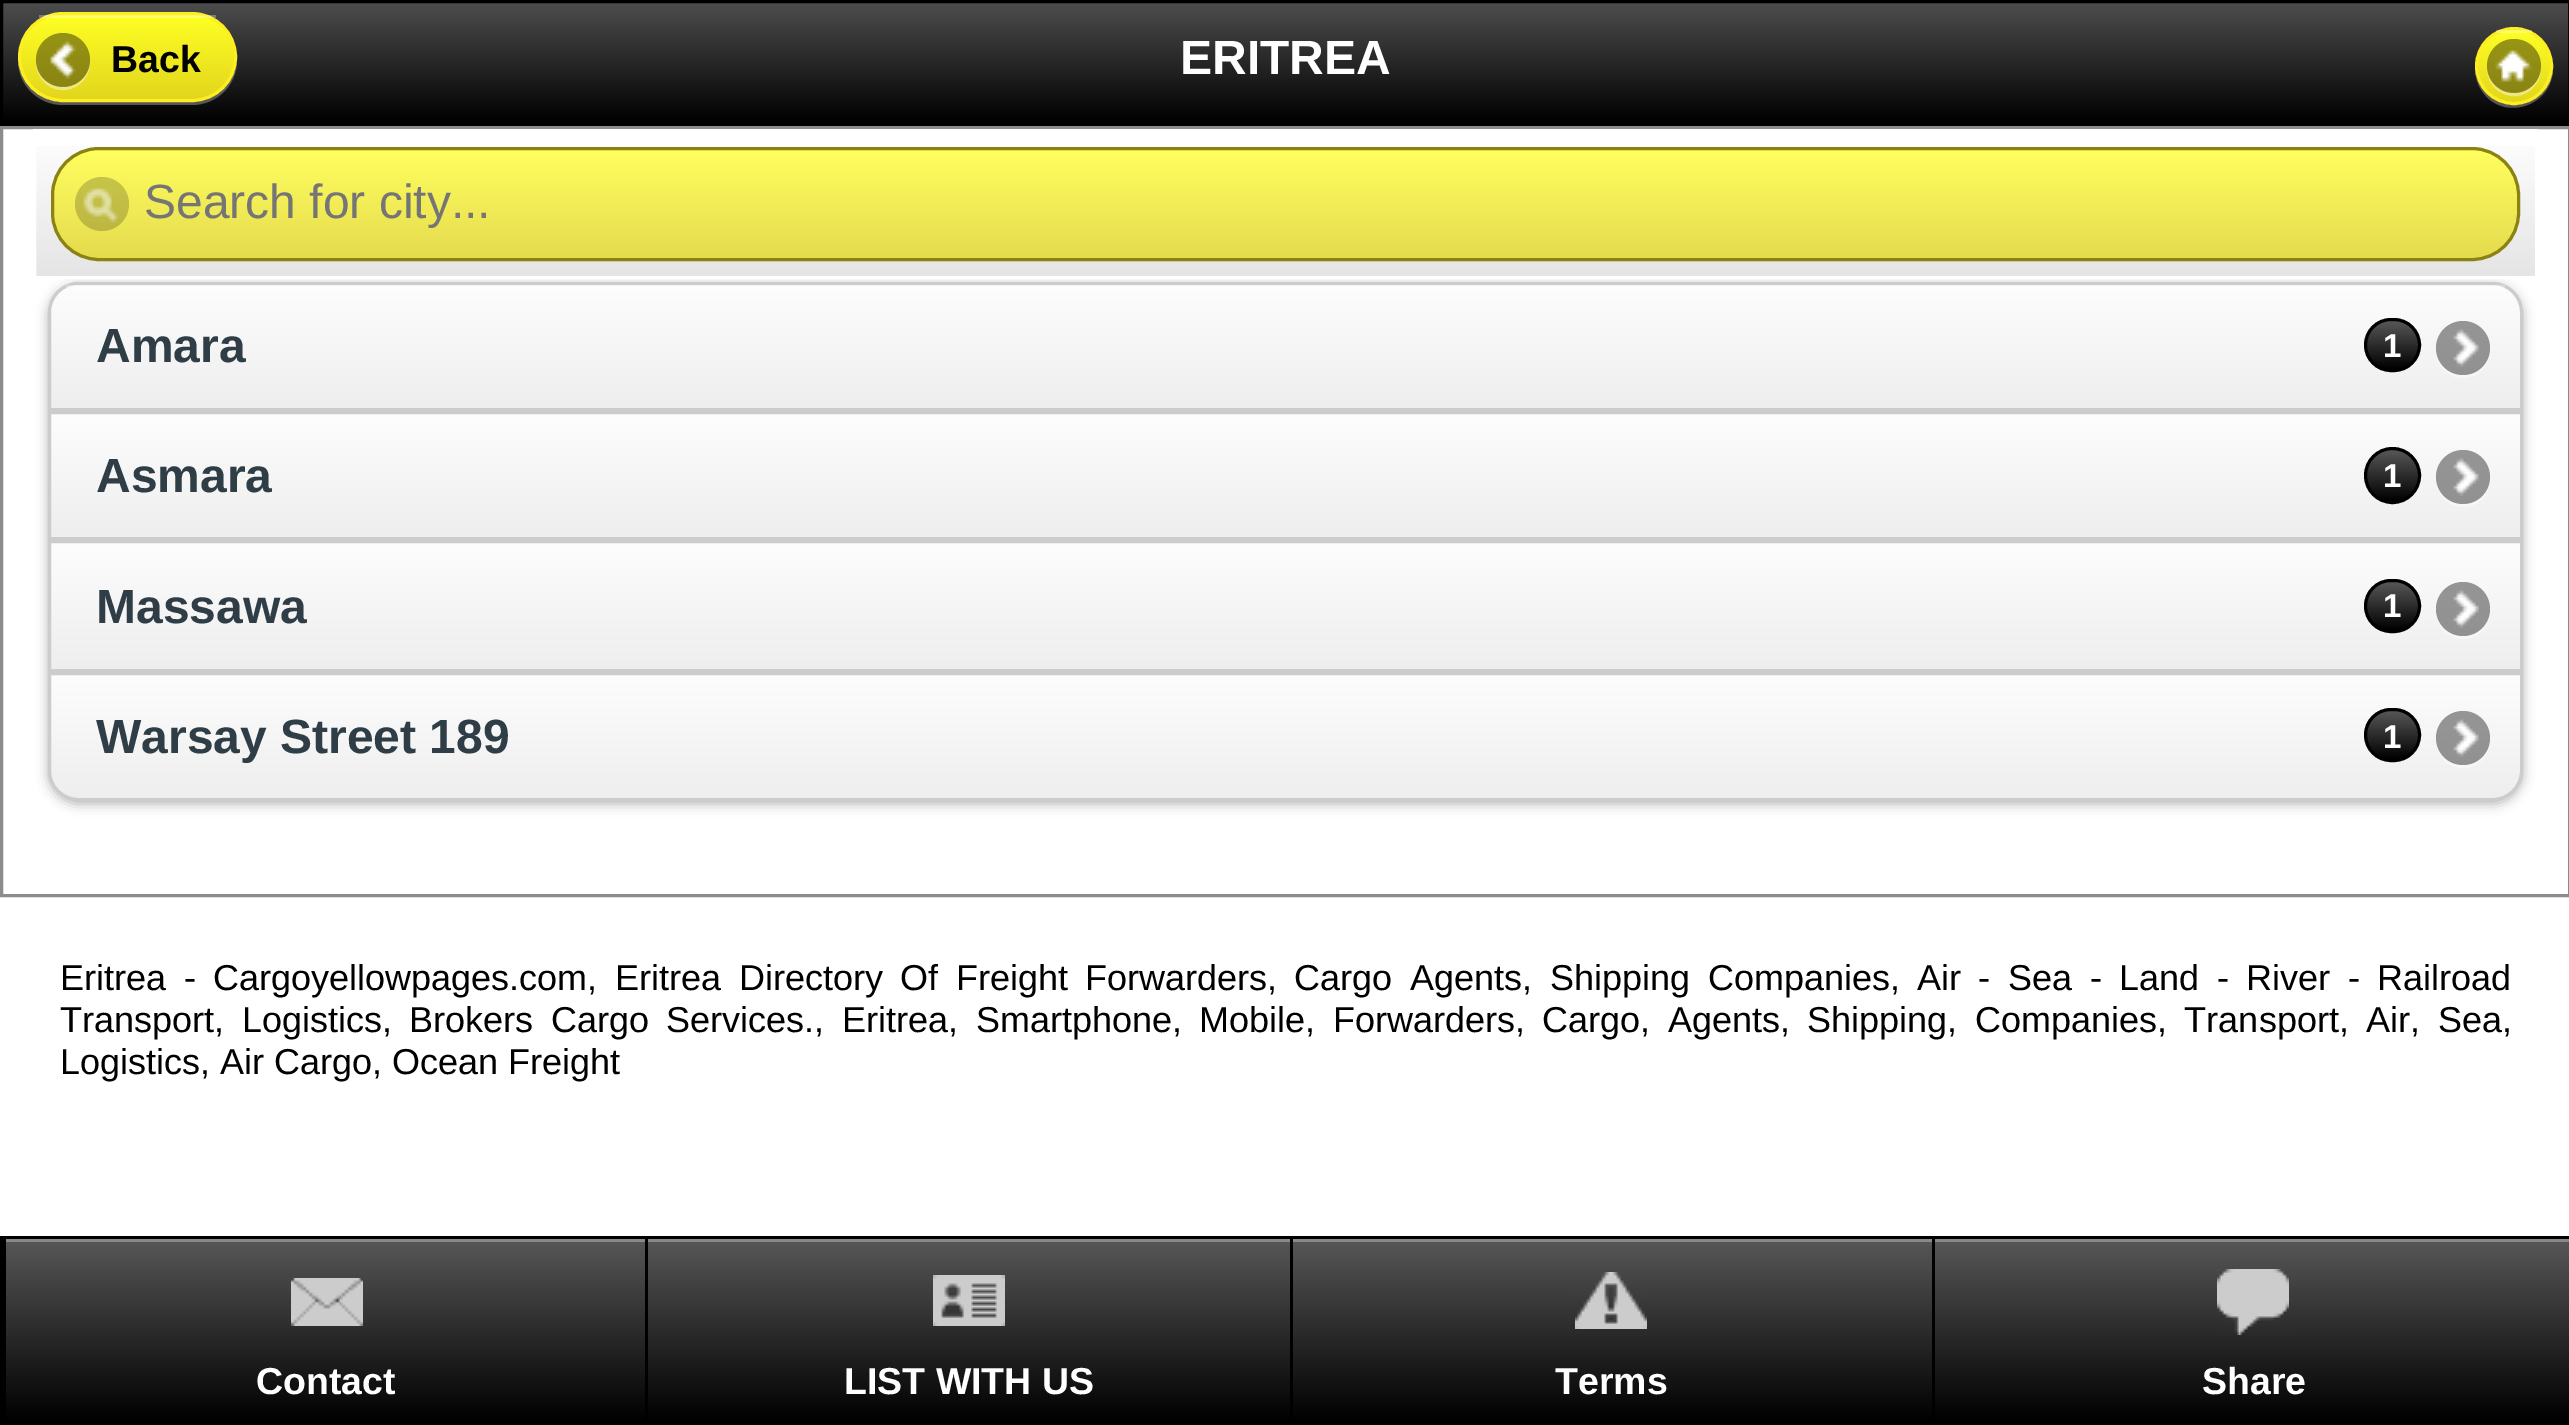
%!PS
<< /PageSize [2569 1425] /PageUsesTransparency true >> setpagedevice
/rgb { 3 { 255 div 3 1 roll } repeat setrgbcolor } def
/font { [ exch dup neg 0 0 3 -1 roll 0 0 ] selectfont } def
/alpha { dup .setfillconstantalpha .setstrokeconstantalpha } def
/circle { newpath 0 360 arc closepath } def
/roundrect { 5 dict begin { /r /h /w /y /x } { exch def } forall
  x r add y moveto x w add y 2 copy h add r arct x w add y h add x 1 index r arct
  x y h add x y r arct x y 2 copy exch w add exch r arct closepath end } def
/shadow { 12 dict begin { /a /b /q /h /w /y /x } { exch def } forall gsave /was 0 def
  9 -2 -9 { dup b mul 4 div /e exch def 1 sub .425 mul 2.718 exch exp 1 add a .99 .min exch div /now exch def
    1 1 now sub 1 was sub div sub alpha /was now def
    w h .min e 2 mul add 0 gt { x e sub y e sub w e 2 mul add h e 2 mul add
      q e add b .6 mul add w h .min 2 div e add .min 0 .max roundrect fill } if } for grestore end } def
/picture { 5 dict begin { /h /w /y /x /name } { exch def } forall
  gsave x y translate w h scale
  w h 8 [w 0 0 h 0 0] name (r) file false 3 colorimage grestore end } def
0 .pushpdf14devicefilter
0 1425 translate 1 -1 scale
4 setmiterlimit
255 255 255 rgb
0 0 2569 1425 rectfill
gsave 3 3 moveto 2568 3 lineto 2568 123 lineto 3 123 lineto closepath clip newpath
<< /ShadingType 2 /ColorSpace /DeviceRGB /Coords [1286 3 1286 123] /Extend [true true] /Function << /FunctionType 2 /Domain [0 1] /C0 [0.302 0.302 0.302] /C1 [0 0 0] /N 1 >> >> shfill grestore
0 0 0 rgb
3 setlinewidth
1.5 1.5 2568 123 rectstroke
0.3 alpha
255 255 255 rgb
18 58 moveto 18 60 lineto 18 85 38 105 63 105 curveto 192 105 lineto 217 105 237 85 237 60 curveto 237 58 lineto 236 83 216 102 192 102 curveto 63 102 lineto 39 102 19 83 18 58 curveto closepath fill
1 alpha
gsave 21 15 213 84 42 roundrect clip newpath
<< /ShadingType 2 /ColorSpace /DeviceRGB /Coords [128 15 128 99] /Extend [true true] /Function << /FunctionType 2 /Domain [0 1] /C0 [1 1 0.141] /C1 [0.886 0.839 0.114] /N 1 >> >> shfill grestore
252 238 33 rgb
19.5 13.5 216 87 43.5 roundrect stroke
0.3 alpha
255 255 255 rgb
39 15 177 3 rectfill
0.4 alpha
36 61 moveto 36 67 37 73 41 78 curveto 56 101 91 89 90 61 curveto 88 95 38 95 36 61 curveto closepath fill
0 0 0 rgb
63 60 27 circle fill
1 alpha
(img/1.rgb) 50 41 26 38 picture
0.3 alpha
255 255 255 rgb
2475 67 moveto 2475 76 2477 84 2482 91 curveto 2503 123 2554 106 2553 67 curveto 2552 88 2535 105 2514 105 curveto 2493 105 2476 88 2475 67 curveto closepath fill
1 alpha
gsave 2514 66 36 circle clip newpath
<< /ShadingType 2 /ColorSpace /DeviceRGB /Coords [2514 30 2514 102] /Extend [true true] /Function << /FunctionType 2 /Domain [0 1] /C0 [1 1 0.141] /C1 [0.886 0.839 0.114] /N 1 >> >> shfill grestore
252 238 33 rgb
2514 66 37.5 circle stroke
0.3 alpha
255 255 255 rgb
2496 30 36 3 rectfill
0.4 alpha
2487 67 moveto 2486 95 2521 107 2536 84 curveto 2540 79 2541 73 2541 67 curveto 2539 101 2489 101 2487 67 curveto closepath fill
0 0 0 rgb
2514 66 27 circle fill
1 alpha
(img/2.rgb) 2495 50 38 32 picture
140 140 140 rgb
1.5 127.5 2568 768 rectstroke
0 0 0 rgb
48 285 2475 519 30 6 0.3 shadow
gsave 36 146 moveto 2535 146 lineto 2535 276 lineto 36 276 lineto closepath clip newpath
<< /ShadingType 2 /ColorSpace /DeviceRGB /Coords [1286 132 1286 276] /Extend [true true] /Function << /FunctionType 2 /Domain [0 1] /C0 [1 1 1] /C1 [0.898 0.898 0.898] /N 1 >> >> shfill grestore
255 255 255 rgb
34.5 130.5 2502 147 rectstroke
gsave 54 150 2463 108 45 roundrect clip newpath
<< /ShadingType 2 /ColorSpace /DeviceRGB /Coords [1286 150 1286 258] /Extend [true true] /Function << /FunctionType 2 /Domain [0 1] /C0 [1 1 0.373] /C1 [0.898 0.859 0.306] /N 1 >> >> shfill grestore
138 130 18 rgb
52.5 148.5 2466 111 46.5 roundrect stroke
0.2 alpha
0 0 0 rgb
102 204 27 circle fill
1 alpha
(img/3.rgb) 83 188 35 35 picture
gsave 78 285 moveto 2493 285 lineto 2508 285 2520 297 2520 312 curveto 2520 408 lineto 51 408 lineto 51 312 lineto 51 297 63 285 78 285 curveto closepath clip newpath
<< /ShadingType 2 /ColorSpace /DeviceRGB /Coords [1286 285 1286 408] /Extend [true true] /Function << /FunctionType 2 /Domain [0 1] /C0 [0.992 0.992 0.992] /C1 [0.933 0.933 0.933] /N 1 >> >> shfill grestore
204 204 204 rgb
78 283.5 moveto 2493 283.5 lineto 2508.5 283.5 2521.5 296.5 2521.5 312 curveto 2521.5 409.5 lineto 49.5 409.5 lineto 49.5 312 lineto 49.5 296.5 62.5 283.5 78 283.5 curveto closepath stroke
0.3 alpha
255 255 255 rgb
66 285 2439 3 rectfill
1 alpha
gsave 2367 321 51 48 24 roundrect clip newpath
<< /ShadingType 2 /ColorSpace /DeviceRGB /Coords [2393 321 2393 369] /Extend [true true] /Function << /FunctionType 2 /Domain [0 1] /C0 [0.341 0.341 0.341] /C1 [0 0 0] /N 1 >> >> shfill grestore
0 0 0 rgb
2365.5 319.5 54 51 25.5 roundrect stroke
247 247 247 rgb
2436 350 moveto 2435 377 2470 389 2485 366 curveto 2489 361 2490 355 2490 350 curveto 2488 383 2438 383 2436 350 curveto closepath fill
0.4 alpha
0 0 0 rgb
2463 348 27 circle fill
1 alpha
(img/4.rgb) 2453 329 26 38 picture
gsave 51 414 moveto 2520 414 lineto 2520 537 lineto 51 537 lineto closepath clip newpath
<< /ShadingType 2 /ColorSpace /DeviceRGB /Coords [1286 414 1286 537] /Extend [true true] /Function << /FunctionType 2 /Domain [0 1] /C0 [0.992 0.992 0.992] /C1 [0.933 0.933 0.933] /N 1 >> >> shfill grestore
204 204 204 rgb
49.5 412.5 2472 126 rectstroke
gsave 2392.5 475.5 25.5 circle clip newpath
<< /ShadingType 2 /ColorSpace /DeviceRGB /Coords [2393 450 2393 501] /Extend [true true] /Function << /FunctionType 2 /Domain [0 1] /C0 [0.341 0.341 0.341] /C1 [0 0 0] /N 1 >> >> shfill grestore
0 0 0 rgb
2392.5 475.5 27 circle stroke
0.4 alpha
255 255 255 rgb
2436 478 moveto 2435 506 2470 518 2485 495 curveto 2489 490 2490 484 2490 478 curveto 2488 512 2438 512 2436 478 curveto closepath fill
0 0 0 rgb
2463 477 27 circle fill
1 alpha
(img/4.rgb) 2453 458 26 38 picture
gsave 51 543 moveto 2520 543 lineto 2520 669 lineto 51 669 lineto closepath clip newpath
<< /ShadingType 2 /ColorSpace /DeviceRGB /Coords [1286 543 1286 669] /Extend [true true] /Function << /FunctionType 2 /Domain [0 1] /C0 [0.992 0.992 0.992] /C1 [0.933 0.933 0.933] /N 1 >> >> shfill grestore
204 204 204 rgb
49.5 541.5 2472 129 rectstroke
gsave 2367 582 51 48 24 roundrect clip newpath
<< /ShadingType 2 /ColorSpace /DeviceRGB /Coords [2393 582 2393 630] /Extend [true true] /Function << /FunctionType 2 /Domain [0 1] /C0 [0.341 0.341 0.341] /C1 [0 0 0] /N 1 >> >> shfill grestore
0 0 0 rgb
2365.5 580.5 54 51 25.5 roundrect stroke
247 247 247 rgb
2436 610 moveto 2436 616 2437 622 2441 627 curveto 2456 650 2491 638 2490 610 curveto 2488 644 2438 644 2436 610 curveto closepath fill
0.4 alpha
0 0 0 rgb
2463 609 27 circle fill
1 alpha
(img/5.rgb) 2453 590 26 38 picture
gsave 51 675 moveto 2520 675 lineto 2520 771 lineto 2520 786 2508 798 2493 798 curveto 78 798 lineto 63 798 51 786 51 771 curveto closepath clip newpath
<< /ShadingType 2 /ColorSpace /DeviceRGB /Coords [1286 675 1286 798] /Extend [true true] /Function << /FunctionType 2 /Domain [0 1] /C0 [0.992 0.992 0.992] /C1 [0.933 0.933 0.933] /N 1 >> >> shfill grestore
204 204 204 rgb
49.5 673.5 moveto 2521.5 673.5 lineto 2521.5 771 lineto 2521.5 786.5 2508.5 799.5 2493 799.5 curveto 78 799.5 lineto 62.5 799.5 49.5 786.5 49.5 771 curveto closepath stroke
gsave 2367 711 51 48 24 roundrect clip newpath
<< /ShadingType 2 /ColorSpace /DeviceRGB /Coords [2393 711 2393 759] /Extend [true true] /Function << /FunctionType 2 /Domain [0 1] /C0 [0.341 0.341 0.341] /C1 [0 0 0] /N 1 >> >> shfill grestore
0 0 0 rgb
2365.5 709.5 54 51 25.5 roundrect stroke
247 247 247 rgb
2436 740 moveto 2436 745 2437 751 2441 756 curveto 2456 779 2491 767 2490 740 curveto 2488 773 2438 773 2436 740 curveto closepath fill
0.4 alpha
0 0 0 rgb
2463 738 27 circle fill
1 alpha
(img/4.rgb) 2453 719 26 38 picture
1.5 1237.5 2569 186 rectstroke
gsave 6 1242 moveto 645 1242 lineto 645 1422 lineto 6 1422 lineto closepath clip newpath
<< /ShadingType 2 /ColorSpace /DeviceRGB /Coords [326 1239 326 1422] /Extend [true true] /Function << /FunctionType 2 /Domain [0 1] /C0 [0.341 0.341 0.341] /C1 [0 0 0] /N 1 >> >> shfill grestore
3 1239 3 183 rectfill
137 137 137 rgb
6 1239 639 3 rectfill
(img/6.rgb) 291 1278 72 48 picture
gsave 648 1242 moveto 1290 1242 lineto 1290 1422 lineto 648 1422 lineto closepath clip newpath
<< /ShadingType 2 /ColorSpace /DeviceRGB /Coords [969 1239 969 1422] /Extend [true true] /Function << /FunctionType 2 /Domain [0 1] /C0 [0.341 0.341 0.341] /C1 [0 0 0] /N 1 >> >> shfill grestore
0 0 0 rgb
645 1239 3 183 rectfill
137 137 137 rgb
648 1239 642 3 rectfill
(img/7.rgb) 933 1275 72 51 picture
gsave 1293 1242 moveto 1932 1242 lineto 1932 1422 lineto 1293 1422 lineto closepath clip newpath
<< /ShadingType 2 /ColorSpace /DeviceRGB /Coords [1613 1239 1613 1422] /Extend [true true] /Function << /FunctionType 2 /Domain [0 1] /C0 [0.341 0.341 0.341] /C1 [0 0 0] /N 1 >> >> shfill grestore
0 0 0 rgb
1290 1239 3 183 rectfill
137 137 137 rgb
1293 1239 639 3 rectfill
(img/8.rgb) 1575 1272 72 57 picture
gsave 1935 1242 moveto 2569 1242 lineto 2569 1422 lineto 1935 1422 lineto closepath clip newpath
<< /ShadingType 2 /ColorSpace /DeviceRGB /Coords [2255 1239 2255 1422] /Extend [true true] /Function << /FunctionType 2 /Domain [0 1] /C0 [0.341 0.341 0.341] /C1 [0 0 0] /N 1 >> >> shfill grestore
0 0 0 rgb
1932 1239 3 183 rectfill
137 137 137 rgb
1935 1239 634 3 rectfill
(img/9.rgb) 2217 1269 72 66 picture
/LiberationSans-Bold 37.5 font
0 0 0 rgb
111 72 moveto (Back) show
/LiberationSans-Bold 48 font
255 255 255 rgb
1180 74 moveto (ERITREA) show
/LiberationSans-Regular 48 font
117 117 117 rgb
144 218 moveto (Search for city...) show
/LiberationSans-Bold 48 font
47 62 70 rgb
96 362 moveto (Amara) show
/LiberationSans-Bold 33 font
255 255 255 rgb
2383 357 moveto (1) show
/LiberationSans-Bold 48 font
47 62 70 rgb
96 492 moveto (Asmara) show
/LiberationSans-Bold 33 font
255 255 255 rgb
2383 487 moveto (1) show
/LiberationSans-Bold 48 font
47 62 70 rgb
96 623 moveto (Massawa) show
/LiberationSans-Bold 33 font
255 255 255 rgb
2383 617 moveto (1) show
/LiberationSans-Bold 48 font
47 62 70 rgb
96 753 moveto (Warsay Street 189) show
/LiberationSans-Bold 33 font
255 255 255 rgb
2383 748 moveto (1) show
/LiberationSans-Regular 36 font
0 0 0 rgb
60 990 moveto 7.5 0 32 (Eritrea - Cargoyellowpages.com,) widthshow
615 990 moveto 7.5 0 32 (Eritrea Directory Of Freight Forwarders,) widthshow
1294 990 moveto 7.5 0 32 (Cargo Agents,) widthshow
1550 990 moveto 7.5 0 32 (Shipping Companies,) widthshow
1917 990 moveto 7.5 0 32 (Air - Sea - Land - River - Railroad) widthshow
60 1032 moveto (Transport,) show
242 1032 moveto (Logistics,) show
409 1032 moveto 7.5 0 32 (Brokers Cargo Services.,) widthshow
842 1032 moveto 7.5 0 32 (Eritrea, Smartphone, Mobile, Forwarders, Cargo, Agents, Shipping, Companies, Transport, Air, Sea,) widthshow
60 1074 moveto (Logistics, Air Cargo, Ocean Freight) show
/LiberationSans-Bold 37.5 font
255 255 255 rgb
[
  [(Contact) 256 1394]
  [(LIST WITH US) 844 1394]
  [(Terms) 1555 1394]
  [(Share) 2202 1394]
] { aload pop moveto show } forall
.poppdf14devicefilter showpage
